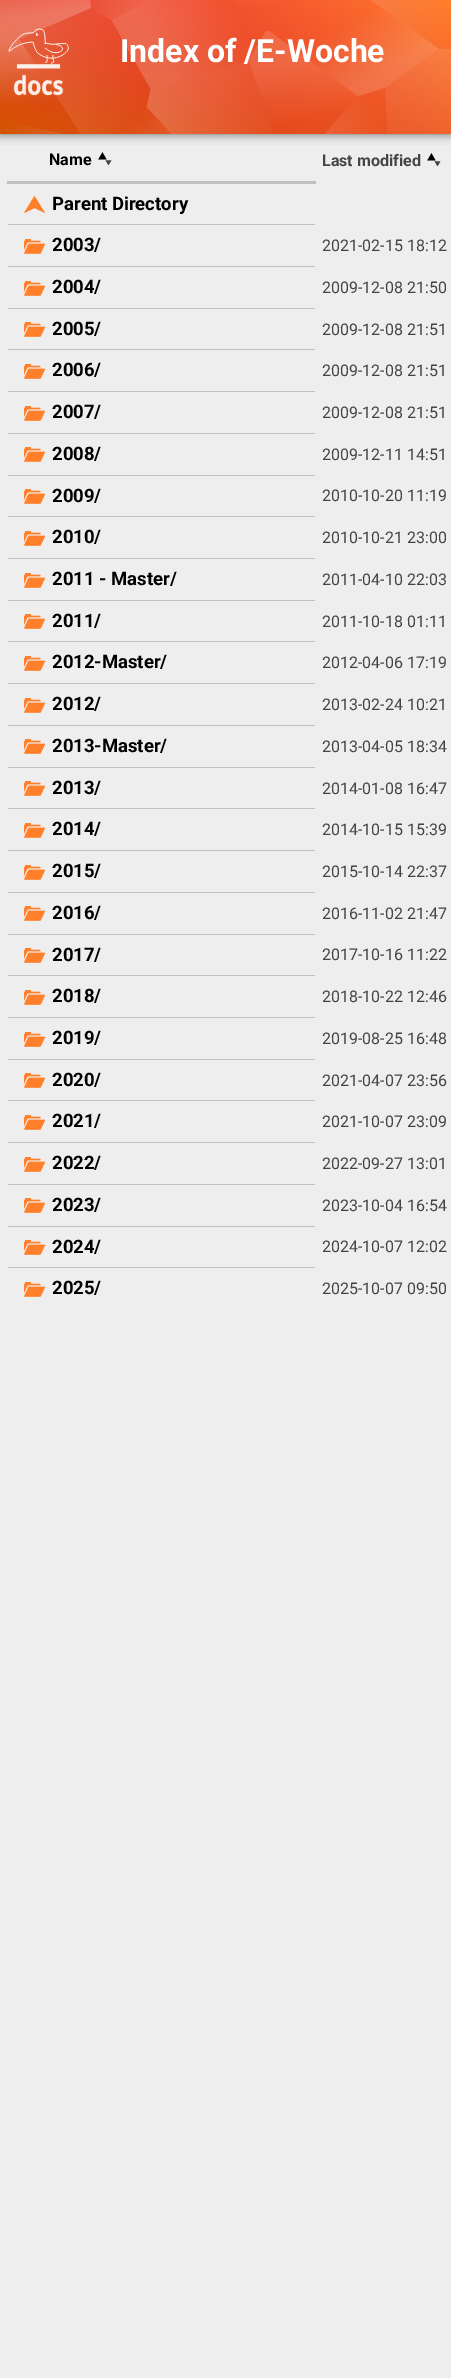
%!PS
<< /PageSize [451 2378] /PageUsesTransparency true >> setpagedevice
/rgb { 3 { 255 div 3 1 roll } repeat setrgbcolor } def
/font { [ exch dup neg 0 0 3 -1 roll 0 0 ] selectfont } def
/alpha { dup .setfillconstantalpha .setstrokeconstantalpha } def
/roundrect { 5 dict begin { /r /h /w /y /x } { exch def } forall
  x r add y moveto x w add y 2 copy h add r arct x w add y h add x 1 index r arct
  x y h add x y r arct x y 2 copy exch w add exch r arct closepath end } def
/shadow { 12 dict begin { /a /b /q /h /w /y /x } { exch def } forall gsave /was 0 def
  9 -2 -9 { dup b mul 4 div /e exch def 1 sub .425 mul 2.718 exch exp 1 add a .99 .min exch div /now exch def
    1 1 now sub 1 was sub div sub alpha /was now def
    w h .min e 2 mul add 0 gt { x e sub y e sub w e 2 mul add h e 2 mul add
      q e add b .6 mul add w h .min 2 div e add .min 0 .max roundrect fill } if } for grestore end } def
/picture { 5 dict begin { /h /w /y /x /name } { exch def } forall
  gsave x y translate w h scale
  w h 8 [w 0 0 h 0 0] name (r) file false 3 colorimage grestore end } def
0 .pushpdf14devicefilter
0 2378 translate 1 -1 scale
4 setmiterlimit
238 238 238 rgb
0 0 451 2378 rectfill
0 0 0 rgb
0 0 451 134 0 5 0.6 shadow
255 127 42 rgb
0 0 451 134 rectfill
(img/1.rgb) 0 0 451 134 picture
192 192 192 rgb
7 181 309 3 rectfill
(img/2.rgb) 98 152 14 13 picture
(img/2.rgb) 427 153 14 13 picture
8 224 307 1 rectfill
255 127 42 rgb
24 213 moveto 34.5 196 lineto 45 213 lineto 34.5 208 lineto closepath eofill
192 192 192 rgb
8 266 307 1 rectfill
(img/3.rgb) 24 239 21 15 picture
8 308 307 1 rectfill
(img/3.rgb) 24 281 21 15 picture
8 349 307 1 rectfill
(img/3.rgb) 24 322 21 15 picture
8 391 307 1 rectfill
(img/3.rgb) 24 364 21 15 picture
8 433 307 1 rectfill
(img/3.rgb) 24 406 21 15 picture
8 475 307 1 rectfill
(img/3.rgb) 24 447 21 15 picture
8 516 307 1 rectfill
(img/3.rgb) 24 489 21 15 picture
8 558 307 1 rectfill
(img/3.rgb) 24 531 21 15 picture
8 600 307 1 rectfill
(img/3.rgb) 24 573 21 15 picture
8 641 307 1 rectfill
(img/3.rgb) 24 614 21 15 picture
8 683 307 1 rectfill
(img/3.rgb) 24 656 21 15 picture
8 725 307 1 rectfill
(img/3.rgb) 24 698 21 15 picture
8 767 307 1 rectfill
(img/3.rgb) 24 739 21 15 picture
8 808 307 1 rectfill
(img/3.rgb) 24 781 21 15 picture
8 850 307 1 rectfill
(img/3.rgb) 24 823 21 15 picture
8 892 307 1 rectfill
(img/3.rgb) 24 865 21 15 picture
8 934 307 1 rectfill
(img/3.rgb) 24 906 21 15 picture
8 975 307 1 rectfill
(img/3.rgb) 24 948 21 15 picture
8 1017 307 1 rectfill
(img/3.rgb) 24 990 21 15 picture
8 1059 307 1 rectfill
(img/3.rgb) 24 1032 21 15 picture
8 1100 307 1 rectfill
(img/3.rgb) 24 1073 21 15 picture
8 1142 307 1 rectfill
(img/3.rgb) 24 1115 21 15 picture
8 1184 307 1 rectfill
(img/3.rgb) 24 1157 21 15 picture
8 1226 307 1 rectfill
(img/3.rgb) 24 1198 21 15 picture
8 1267 307 1 rectfill
(img/3.rgb) 24 1240 21 15 picture
(img/3.rgb) 24 1282 21 15 picture
/Roboto-Bold 32 font
255 255 255 rgb
120 62 moveto (Index of /E-Woche) show
/Roboto-Bold 16 font
0 0 0 rgb
49 165 moveto (Name) show
68 68 68 rgb
322 166 moveto (Last modified) show
/Roboto-Bold 18.5 font
0 0 0 rgb
52 210 moveto (Parent Directory) show
52 251 moveto (2003/) show
/Roboto-Regular 16 font
68 68 68 rgb
322 251 moveto (2021-02-15 18:12) show
/Roboto-Bold 18.5 font
0 0 0 rgb
52 293 moveto (2004/) show
/Roboto-Regular 16 font
68 68 68 rgb
322 293 moveto (2009-12-08 21:50) show
/Roboto-Bold 18.5 font
0 0 0 rgb
52 335 moveto (2005/) show
/Roboto-Regular 16 font
68 68 68 rgb
322 335 moveto (2009-12-08 21:51) show
/Roboto-Bold 18.5 font
0 0 0 rgb
52 376 moveto (2006/) show
/Roboto-Regular 16 font
68 68 68 rgb
322 376 moveto (2009-12-08 21:51) show
/Roboto-Bold 18.5 font
0 0 0 rgb
52 418 moveto (2007/) show
/Roboto-Regular 16 font
68 68 68 rgb
322 418 moveto (2009-12-08 21:51) show
/Roboto-Bold 18.5 font
0 0 0 rgb
52 460 moveto (2008/) show
/Roboto-Regular 16 font
68 68 68 rgb
322 460 moveto (2009-12-11 14:51) show
/Roboto-Bold 18.5 font
0 0 0 rgb
52 502 moveto (2009/) show
/Roboto-Regular 16 font
68 68 68 rgb
322 501 moveto (2010-10-20 11:19) show
/Roboto-Bold 18.5 font
0 0 0 rgb
52 543 moveto (2010/) show
/Roboto-Regular 16 font
68 68 68 rgb
322 543 moveto (2010-10-21 23:00) show
/Roboto-Bold 18.5 font
0 0 0 rgb
52 585 moveto (2011 - Master/) show
/Roboto-Regular 16 font
68 68 68 rgb
322 585 moveto (2011-04-10 22:03) show
/Roboto-Bold 18.5 font
0 0 0 rgb
52 627 moveto (2011/) show
/Roboto-Regular 16 font
68 68 68 rgb
322 627 moveto (2011-10-18 01:11) show
/Roboto-Bold 18.5 font
0 0 0 rgb
52 668 moveto (2012-Master/) show
/Roboto-Regular 16 font
68 68 68 rgb
322 668 moveto (2012-04-06 17:19) show
/Roboto-Bold 18.5 font
0 0 0 rgb
52 710 moveto (2012/) show
/Roboto-Regular 16 font
68 68 68 rgb
322 710 moveto (2013-02-24 10:21) show
/Roboto-Bold 18.5 font
0 0 0 rgb
52 752 moveto (2013-Master/) show
/Roboto-Regular 16 font
68 68 68 rgb
322 752 moveto (2013-04-05 18:34) show
/Roboto-Bold 18.5 font
0 0 0 rgb
52 794 moveto (2013/) show
/Roboto-Regular 16 font
68 68 68 rgb
322 794 moveto (2014-01-08 16:47) show
/Roboto-Bold 18.5 font
0 0 0 rgb
52 835 moveto (2014/) show
/Roboto-Regular 16 font
68 68 68 rgb
322 835 moveto (2014-10-15 15:39) show
/Roboto-Bold 18.5 font
0 0 0 rgb
52 877 moveto (2015/) show
/Roboto-Regular 16 font
68 68 68 rgb
322 877 moveto (2015-10-14 22:37) show
/Roboto-Bold 18.5 font
0 0 0 rgb
52 919 moveto (2016/) show
/Roboto-Regular 16 font
68 68 68 rgb
322 919 moveto (2016-11-02 21:47) show
/Roboto-Bold 18.5 font
0 0 0 rgb
52 961 moveto (2017/) show
/Roboto-Regular 16 font
68 68 68 rgb
322 960 moveto (2017-10-16 11:22) show
/Roboto-Bold 18.5 font
0 0 0 rgb
52 1002 moveto (2018/) show
/Roboto-Regular 16 font
68 68 68 rgb
322 1002 moveto (2018-10-22 12:46) show
/Roboto-Bold 18.5 font
0 0 0 rgb
52 1044 moveto (2019/) show
/Roboto-Regular 16 font
68 68 68 rgb
322 1044 moveto (2019-08-25 16:48) show
/Roboto-Bold 18.5 font
0 0 0 rgb
52 1086 moveto (2020/) show
/Roboto-Regular 16 font
68 68 68 rgb
322 1086 moveto (2021-04-07 23:56) show
/Roboto-Bold 18.5 font
0 0 0 rgb
52 1127 moveto (2021/) show
/Roboto-Regular 16 font
68 68 68 rgb
322 1127 moveto (2021-10-07 23:09) show
/Roboto-Bold 18.5 font
0 0 0 rgb
52 1169 moveto (2022/) show
/Roboto-Regular 16 font
68 68 68 rgb
322 1169 moveto (2022-09-27 13:01) show
/Roboto-Bold 18.5 font
0 0 0 rgb
52 1211 moveto (2023/) show
/Roboto-Regular 16 font
68 68 68 rgb
322 1211 moveto (2023-10-04 16:54) show
/Roboto-Bold 18.5 font
0 0 0 rgb
52 1253 moveto (2024/) show
/Roboto-Regular 16 font
68 68 68 rgb
322 1252 moveto (2024-10-07 12:02) show
/Roboto-Bold 18.5 font
0 0 0 rgb
52 1294 moveto (2025/) show
/Roboto-Regular 16 font
68 68 68 rgb
322 1294 moveto (2025-10-07 09:50) show
.poppdf14devicefilter showpage
